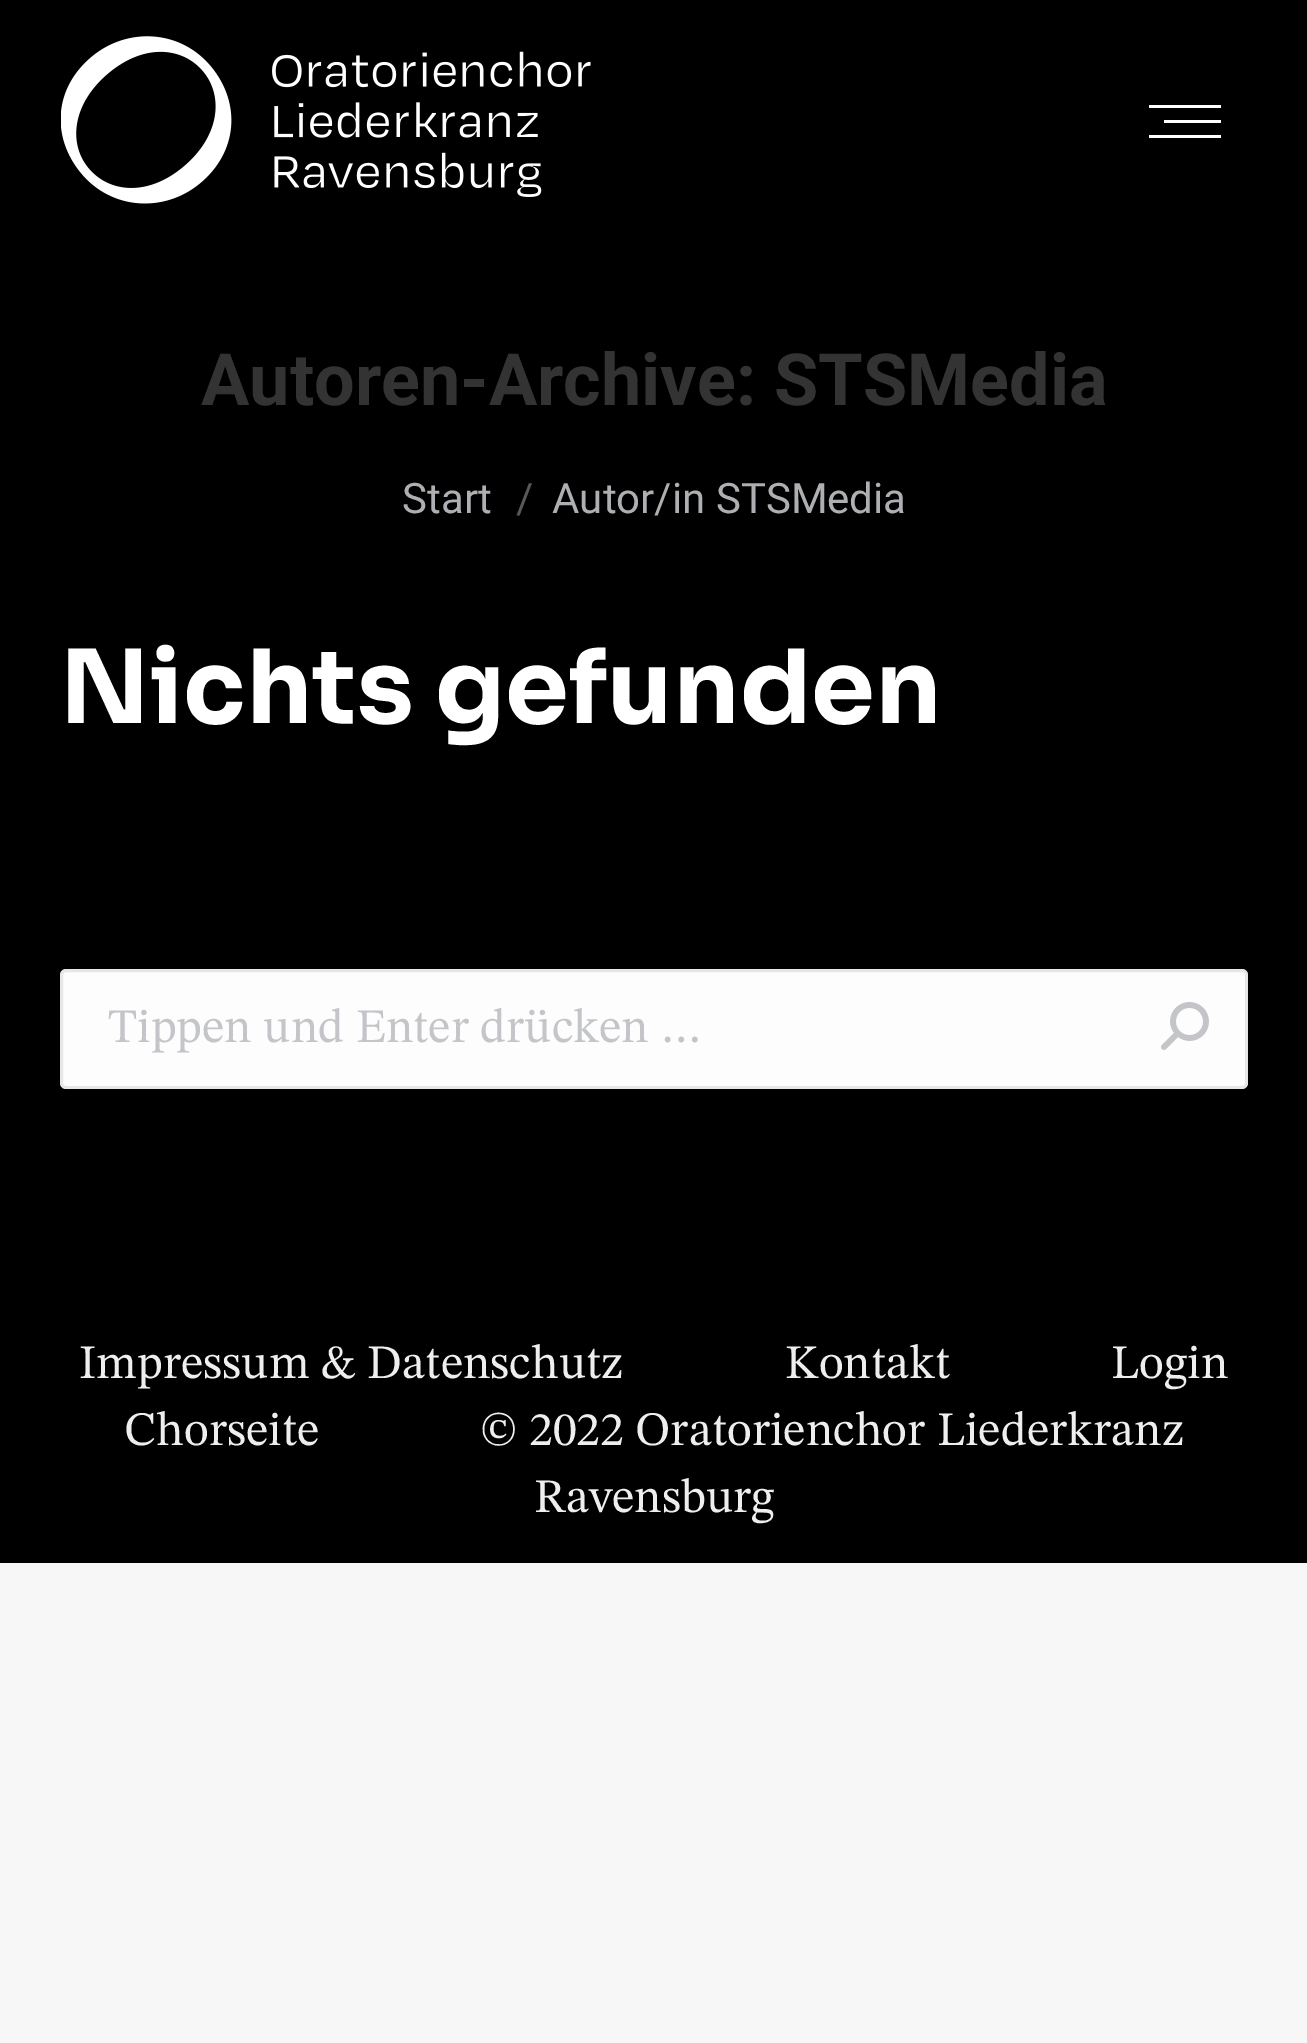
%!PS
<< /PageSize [1307 2043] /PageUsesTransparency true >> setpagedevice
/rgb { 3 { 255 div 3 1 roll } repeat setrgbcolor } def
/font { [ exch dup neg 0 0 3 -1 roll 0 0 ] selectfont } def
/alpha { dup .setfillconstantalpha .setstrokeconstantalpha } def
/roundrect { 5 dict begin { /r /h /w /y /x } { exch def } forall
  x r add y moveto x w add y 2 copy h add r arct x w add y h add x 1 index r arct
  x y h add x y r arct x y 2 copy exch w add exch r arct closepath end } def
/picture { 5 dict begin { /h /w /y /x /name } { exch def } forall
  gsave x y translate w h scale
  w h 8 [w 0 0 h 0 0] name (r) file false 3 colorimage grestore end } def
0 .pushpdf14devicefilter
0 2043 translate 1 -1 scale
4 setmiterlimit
247 247 247 rgb
0 0 1307 2043 rectfill
0 0 0 rgb
0 0 1307 1563 rectfill
(img/1.rgb) 61 36 530 168 picture
[
  [1149 105 72 3 255 255 255]
  [1164 120 57 3 255 255 255]
  [1149 135 72 3 255 255 255]
] { aload pop rgb rectfill } forall
253 253 253 rgb
60 969 1188 120 6 roundrect fill
0.11 alpha
51 51 51 rgb
3 setlinewidth
61.5 970.5 1185 117 4.5 roundrect stroke
1 alpha
(img/2.rgb) 1161 1002 48 48 picture
/Roboto-Bold 72 font
201 405 moveto (Autoren-Archive: STSMedia) show
/Roboto-Regular 42 font
173 175 179 rgb
402 513 moveto (Start) show
87 88 90 rgb
516 513 moveto (/) show
173 175 179 rgb
552 513 moveto (Autor/in STSMedia) show
/Sora-Bold 102 font
255 255 255 rgb
60 723 moveto (Nichts gefunden) show
/STIXTwoText-Regular 48 font
196 197 201 rgb
108 1042 moveto (Tippen und Enter drücken …) show
238 238 238 rgb
[
  [(Impressum & Datenschutz) 79 1378]
  [(Kontakt) 785 1378]
  [(Login) 1111 1378]
  [(Chorseite) 124 1445]
  [(© 2022 Oratorienchor Liederkranz) 480 1445]
  [(Ravensburg) 534 1512]
] { aload pop moveto show } forall
.poppdf14devicefilter showpage
